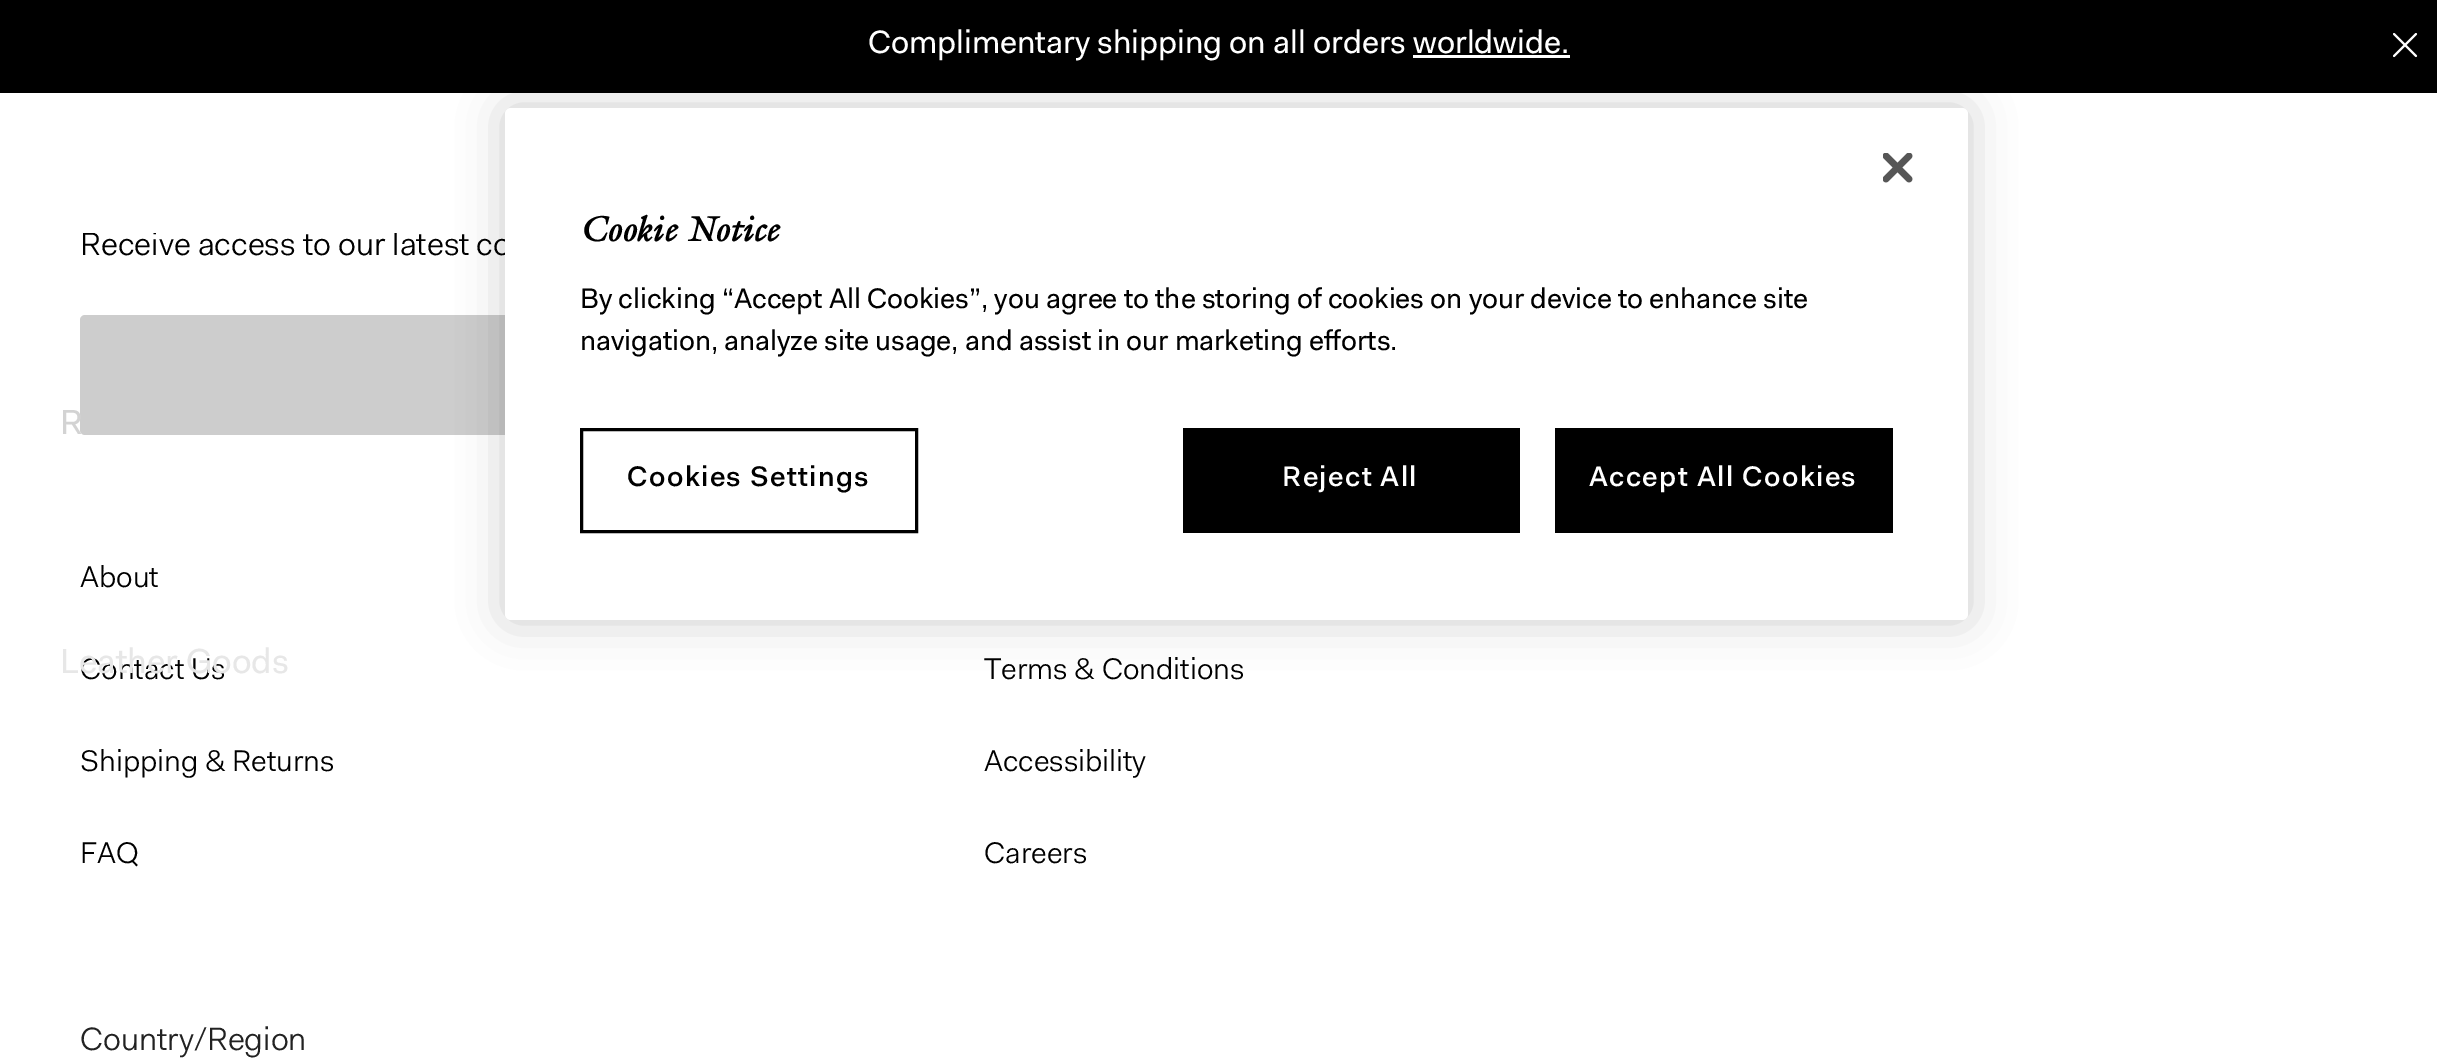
%!PS
<< /PageSize [2437 1062] /PageUsesTransparency true >> setpagedevice
/rgb { 3 { 255 div 3 1 roll } repeat setrgbcolor } def
/font { [ exch dup neg 0 0 3 -1 roll 0 0 ] selectfont } def
/alpha { dup .setfillconstantalpha .setstrokeconstantalpha } def
/roundrect { 5 dict begin { /r /h /w /y /x } { exch def } forall
  x r add y moveto x w add y 2 copy h add r arct x w add y h add x 1 index r arct
  x y h add x y r arct x y 2 copy exch w add exch r arct closepath end } def
/shadow { 12 dict begin { /a /b /q /h /w /y /x } { exch def } forall gsave /was 0 def
  9 -2 -9 { dup b mul 4 div /e exch def 1 sub .425 mul 2.718 exch exp 1 add a .99 .min exch div /now exch def
    1 1 now sub 1 was sub div sub alpha /was now def
    w h .min e 2 mul add 0 gt { x e sub y e sub w e 2 mul add h e 2 mul add
      q e add b .6 mul add w h .min 2 div e add .min 0 .max roundrect fill } if } for grestore end } def
/picture { 5 dict begin { /h /w /y /x /name } { exch def } forall
  gsave x y translate w h scale
  w h 8 [w 0 0 h 0 0] name (r) file false 3 colorimage grestore end } def
0 .pushpdf14devicefilter
0 1062 translate 1 -1 scale
4 setmiterlimit
255 255 255 rgb
0 0 2437 1062 rectfill
0 0 0 rgb
0 0 2437 93 rectfill
255 255 255 rgb
1413 55 157 3 rectfill
(img/1.rgb) 2393 33 25 25 picture
205 205 205 rgb
80 315 1823 120 5 roundrect fill
0 0 0 rgb
505 108 1463 512 6 22.5 0.2 shadow
/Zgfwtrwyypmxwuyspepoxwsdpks-Regular 32.5 font
255 255 255 rgb
868 53 moveto (Complimentary shipping on all orders worldwide.) show
/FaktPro-Light 32.5 font
0 0 0 rgb
80 255 moveto (Receive access to our latest co) show
/FaktPro-Light 30 font
[
  [(About) 80 587]
  [(Contact Us) 80 679]
  [(Terms & Conditions) 984 679]
  [(Shipping & Returns) 80 771]
  [(Accessibility) 984 771]
  [(FAQ) 80 863]
  [(Careers) 984 863]
] { aload pop moveto show } forall
/FaktPro-Light 32.5 font
34 34 34 rgb
80 1050 moveto (Country/Region) show
255 255 255 rgb
82 231 315 2 rectfill
/Zgfwtrwyypmxwuyspepoxwsdpks-Regular 35 font
211 211 211 rgb
60 434 moveto (R) show
231 231 231 rgb
60 673 moveto (Leather Goods) show
255 255 255 rgb
505 108 1463 512 6 roundrect fill
(img/2.rgb) 1883 153 30 30 picture
/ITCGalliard-BoldItalic 35 font
0 0 0 rgb
580 241 moveto (Cookie Notice) show
/Zgfwtrwyypmxwuyspepoxwsdpks-Regular 28.45 font
580 308 moveto (By clicking “Accept All Cookies”, you agree to the storing of cookies on your device to enhance site) show
580 350 moveto (navigation, analyze site usage, and assist in our marketing efforts.) show
3 setlinewidth
581.5 429.5 335 102 rectstroke
/FaktPro-Medium 28.45 font
627 486 moveto 1.4 0 (Cookies Settings) ashow
1183 428 337 105 rectfill
255 255 255 rgb
1282 486 moveto 1.4 0 (Reject All) ashow
0 0 0 rgb
1555 428 338 105 rectfill
255 255 255 rgb
1589 486 moveto 1.4 0 (Accept All Cookies) ashow
.poppdf14devicefilter showpage
